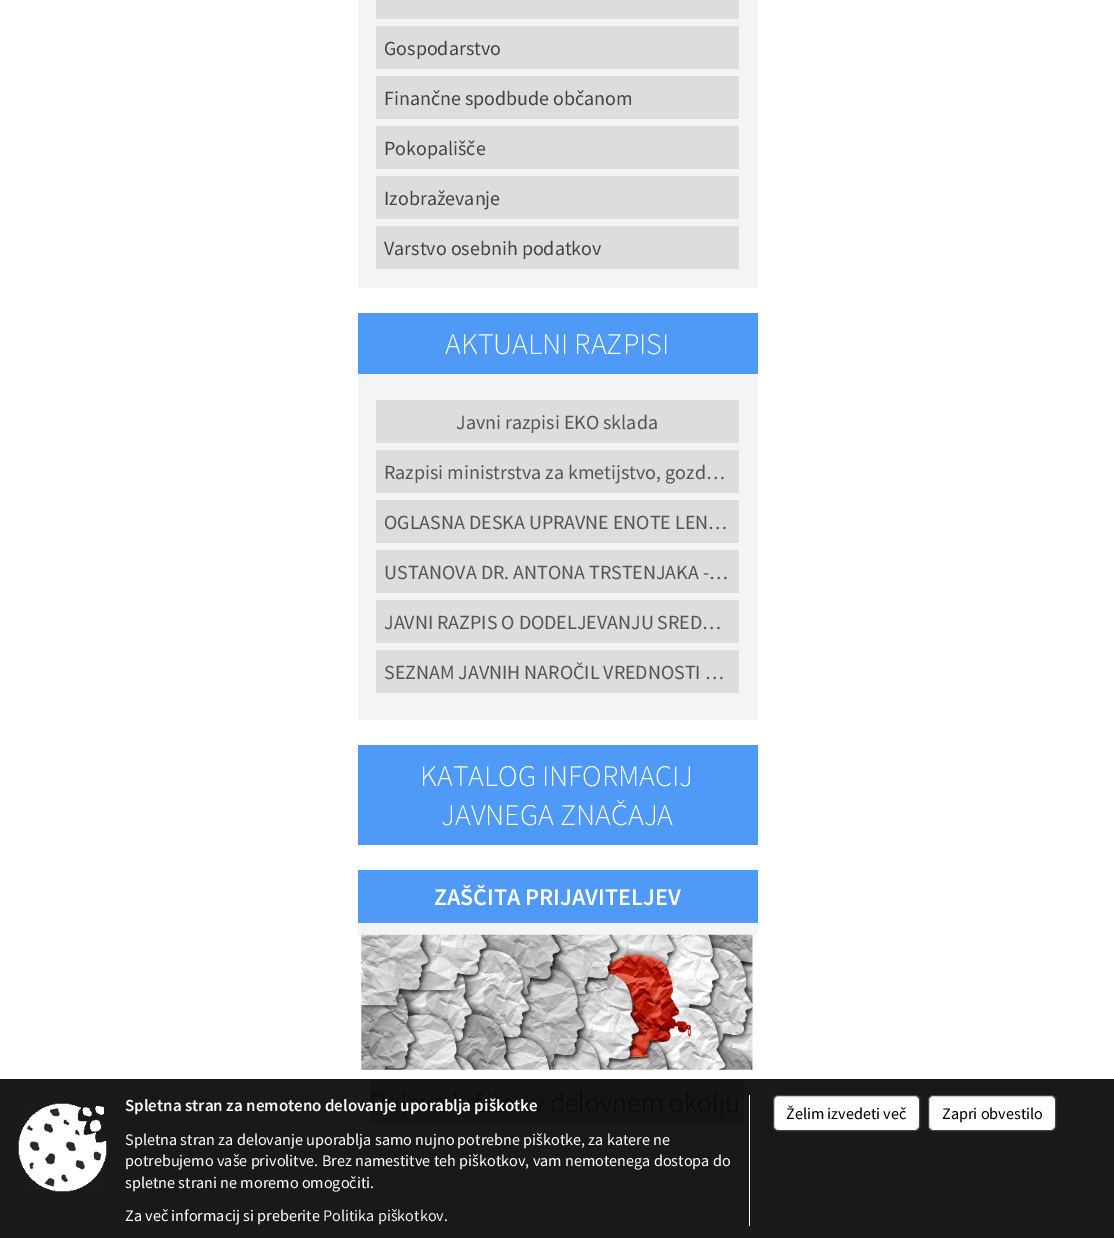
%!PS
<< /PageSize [1114 1238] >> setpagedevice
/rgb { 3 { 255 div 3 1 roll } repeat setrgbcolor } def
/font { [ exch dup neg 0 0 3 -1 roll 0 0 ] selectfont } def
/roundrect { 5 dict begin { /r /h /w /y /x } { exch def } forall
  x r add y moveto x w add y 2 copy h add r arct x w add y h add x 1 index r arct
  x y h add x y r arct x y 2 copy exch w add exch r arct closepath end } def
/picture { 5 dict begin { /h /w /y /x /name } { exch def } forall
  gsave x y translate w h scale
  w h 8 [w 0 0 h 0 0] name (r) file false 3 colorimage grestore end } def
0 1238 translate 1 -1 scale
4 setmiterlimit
255 255 255 rgb
0 0 1114 1238 rectfill
[
  [0 1079 1114 159 25 25 25]
  [358 0 400 288 243 244 245]
  [376 0 363 19 221 221 221]
  [376 26 363 43 221 221 221]
  [376 76 363 43 221 221 221]
  [376 126 363 43 221 221 221]
  [376 176 363 43 221 221 221]
  [376 226 363 43 221 221 221]
  [358 374 400 346 243 244 245]
  [358 313 400 61 79 153 247]
  [376 400 363 43 221 221 221]
  [376 450 363 43 221 221 221]
  [376 500 363 43 221 221 221]
  [376 550 363 43 221 221 221]
  [376 600 363 43 221 221 221]
  [376 650 363 43 221 221 221]
  [358 745 400 100 79 153 247]
  [358 923 400 12 243 244 245]
  [358 870 400 53 79 153 247]
] { aload pop rgb rectfill } forall
(img/1.rgb) 361 934 392 136 picture
21 21 21 rgb
370 1081 374 43 rectfill
(img/2.rgb) 18 1103 89 89 picture
255 255 255 rgb
749 1095 1 131 rectfill
773.5 1095.5 146 35 4.5 roundrect gsave fill grestore
68 68 68 rgb
stroke
255 255 255 rgb
928.5 1095.5 127 35 4.5 roundrect gsave fill grestore
68 68 68 rgb
stroke
/SourceSansPro-Regular 20 font
[
  [(Gospodarstvo) 384 55]
  [(Finančne spodbude občanom) 384 105]
  [(Pokopališče) 384 155]
  [(Izobraževanje) 384 205]
  [(Varstvo osebnih podatkov) 384 255]
] { aload pop moveto show } forall
/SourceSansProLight-Light 30 font
255 255 255 rgb
445 354 moveto (AKTUALNI RAZPISI) show
/SourceSansPro-Regular 20 font
85 85 85 rgb
[
  [(Javni razpisi EKO sklada) 456 429]
  [(Razpisi ministrstva za kmetijstvo, gozd…) 384 479]
  [(OGLASNA DESKA UPRAVNE ENOTE LEN…) 384 529]
  [(USTANOVA DR. ANTONA TRSTENJAKA -…) 384 579]
  [(JAVNI RAZPIS O DODELJEVANJU SRED…) 384 629]
  [(SEZNAM JAVNIH NAROČIL VREDNOSTI …) 384 679]
] { aload pop moveto show } forall
/SourceSansProLight-Light 30 font
255 255 255 rgb
420 786 moveto (KATALOG INFORMACIJ) show
441 825 moveto (JAVNEGA ZNAČAJA) show
/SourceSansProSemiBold-SemiBold 24 font
434 905 moveto (ZAŠČITA PRIJAVITELJEV) show
/SourceSansProLight-Light 28 font
1 9 17 rgb
370 1112 moveto (Prijava kršitev v delovnem okolju) show
/SourceSansProSemiBold-SemiBold 17 font
255 255 255 rgb
125 1111 moveto (Spletna stran za nemoteno delovanje uporablja piškotke) show
/SourceSansPro-Regular 16.15 font
[
  [(Spletna stran za delovanje uporablja samo nujno potrebne piškotke, za katere ne) 125 1145]
  [(potrebujemo vaše privolitve. Brez namestitve teh piškotkov, vam nemotenega dostopa do) 125 1166]
  [(spletne strani ne moremo omogočiti.) 125 1188]
  [(Za več informacij si preberite) 125 1221]
] { aload pop moveto show } forall
238 238 238 rgb
323 1221 moveto (Politika piškotkov) show
255 255 255 rgb
444 1221 moveto (.) show
0 0 0 rgb
786 1119 moveto (Želim izvedeti več) show
942 1119 moveto (Zapri obvestilo) show
showpage
